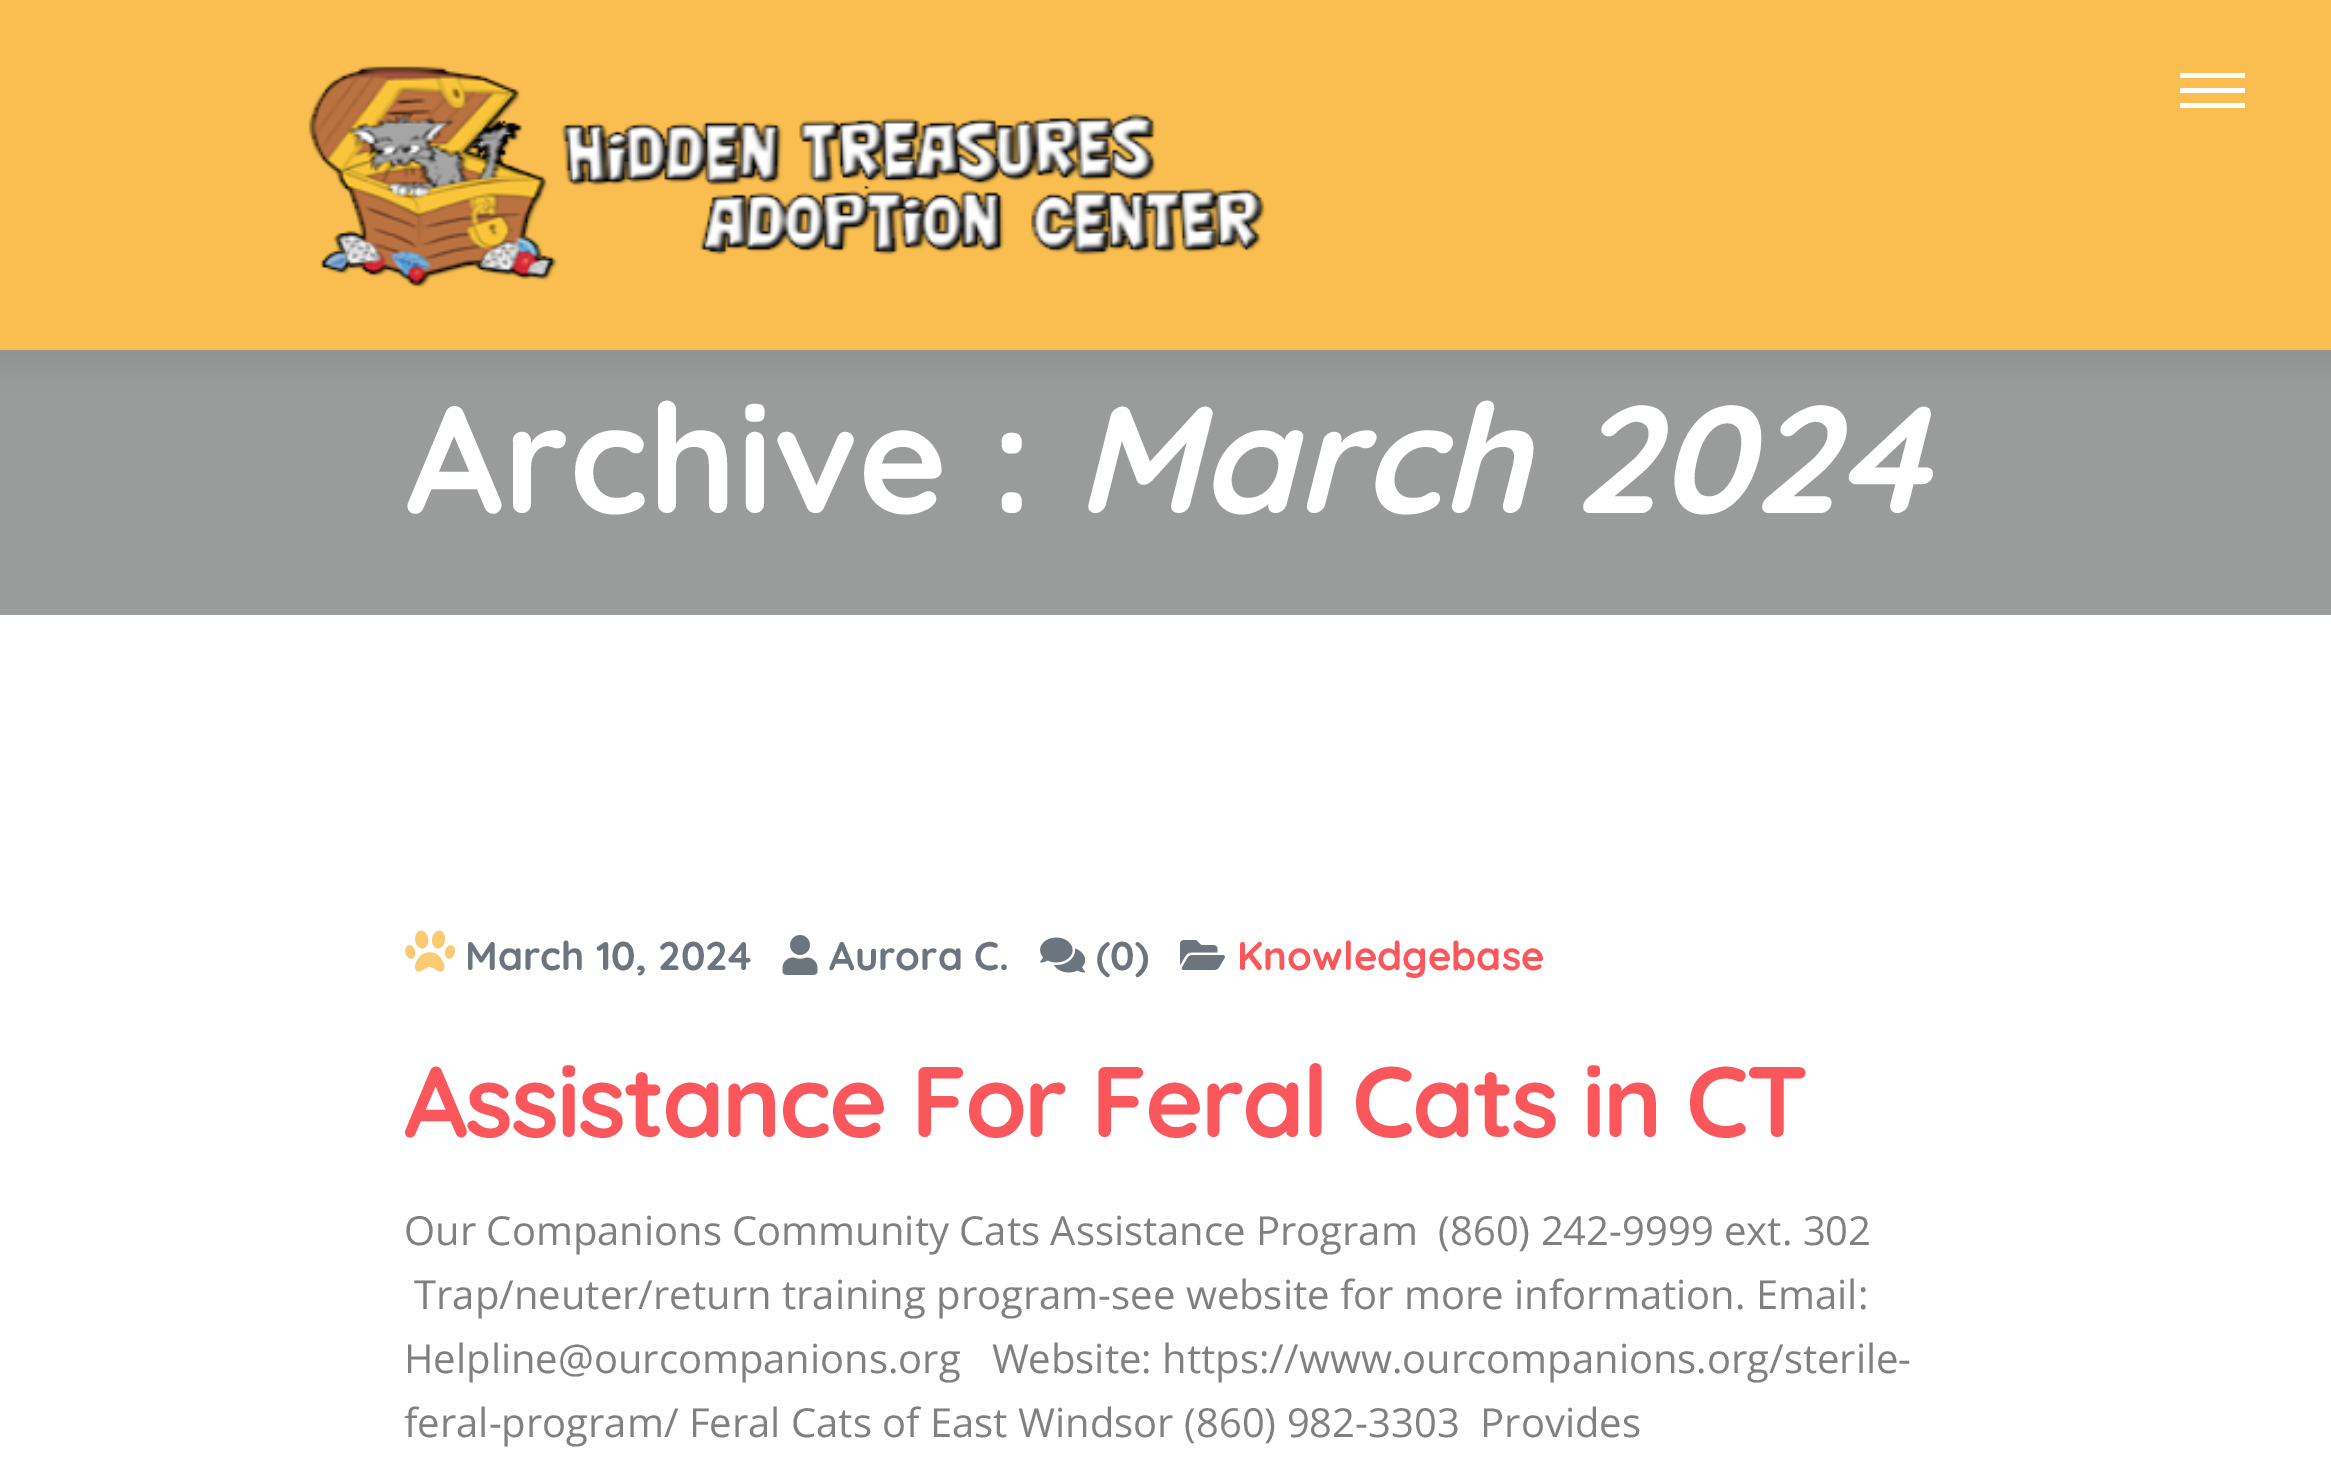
%!PS
<< /PageSize [2331 1477] /PageUsesTransparency true >> setpagedevice
/rgb { 3 { 255 div 3 1 roll } repeat setrgbcolor } def
/font { [ exch dup neg 0 0 3 -1 roll 0 0 ] selectfont } def
/alpha { dup .setfillconstantalpha .setstrokeconstantalpha } def
/roundrect { 5 dict begin { /r /h /w /y /x } { exch def } forall
  x r add y moveto x w add y 2 copy h add r arct x w add y h add x 1 index r arct
  x y h add x y r arct x y 2 copy exch w add exch r arct closepath end } def
/shadow { 12 dict begin { /a /b /q /h /w /y /x } { exch def } forall gsave /was 0 def
  9 -2 -9 { dup b mul 4 div /e exch def 1 sub .425 mul 2.718 exch exp 1 add a .99 .min exch div /now exch def
    1 1 now sub 1 was sub div sub alpha /was now def
    w h .min e 2 mul add 0 gt { x e sub y e sub w e 2 mul add h e 2 mul add
      q e add b .6 mul add w h .min 2 div e add .min 0 .max roundrect fill } if } for grestore end } def
/picture { 5 dict begin { /h /w /y /x /name } { exch def } forall
  gsave x y translate w h scale
  w h 8 [w 0 0 h 0 0] name (r) file false 3 colorimage grestore end } def
0 .pushpdf14devicefilter
0 1477 translate 1 -1 scale
4 setmiterlimit
255 255 255 rgb
0 0 2331 1477 rectfill
154 156 156 rgb
0 350 2331 265 rectfill
0 0 0 rgb
-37 10 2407 350 0 15 0.07 shadow
249 190 79 rgb
0 0 2331 350 rectfill
(img/1.rgb) 308 66 958 222 picture
[
  [2180 73 65 5 255 255 255]
  [2180 88 65 5 255 255 255]
  [2180 103 65 5 255 255 255]
] { aload pop rgb rectfill } forall
(img/2.rgb) 405 930 51 42 picture
(img/3.rgb) 782 935 36 40 picture
(img/4.rgb) 1040 937 46 36 picture
(img/5.rgb) 1180 940 45 30 picture
/Quicksand-Bold 152 font
406 513 moveto (Archive :) show
/Quicksand-BoldItalic 152 font
1075 513 moveto (March 2024) show
/Quicksand-Bold 40 font
108 117 125 rgb
[
  [(March 10, 2024) 465 970]
  [(Aurora C.) 829 970]
  [(\(0\)) 1096 970]
] { aload pop moveto show } forall
249 87 92 rgb
1237 970 moveto (Knowledgebase) show
/Quicksand-Bold 100 font
404 1137 moveto -2.5 0 (Assistance For Feral Cats in CT) ashow
/OpenSans-Regular 40 font
128 128 128 rgb
[
  [(Our Companions Community Cats Assistance Program) 404 1245]
  [(\(860\) 242-9999 ext. 302) 1438 1245]
  [(Trap/neuter/return training program-see website for more information. Email:) 414 1309]
  [(Helpline@ourcompanions.org   Website: https://www.ourcompanions.org/sterile-) 404 1373]
  [(feral-program/ Feral Cats of East Windsor \(860\) 982-3303  Provides) 404 1437]
] { aload pop moveto show } forall
.poppdf14devicefilter showpage
